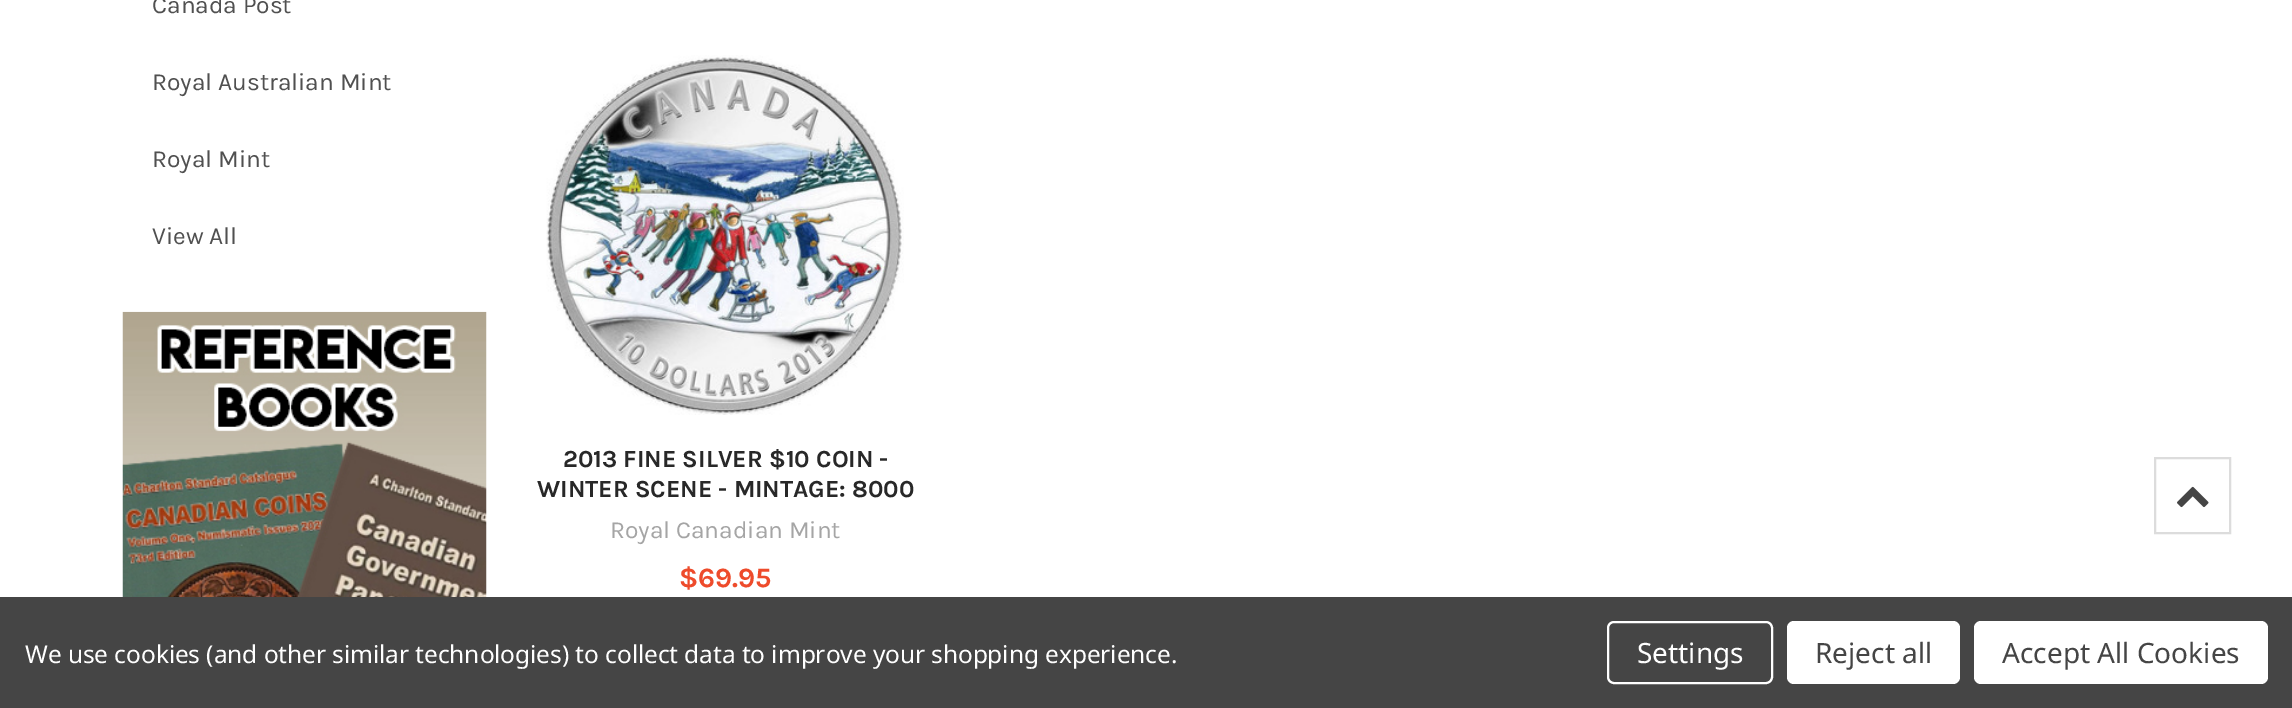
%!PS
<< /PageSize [2292 708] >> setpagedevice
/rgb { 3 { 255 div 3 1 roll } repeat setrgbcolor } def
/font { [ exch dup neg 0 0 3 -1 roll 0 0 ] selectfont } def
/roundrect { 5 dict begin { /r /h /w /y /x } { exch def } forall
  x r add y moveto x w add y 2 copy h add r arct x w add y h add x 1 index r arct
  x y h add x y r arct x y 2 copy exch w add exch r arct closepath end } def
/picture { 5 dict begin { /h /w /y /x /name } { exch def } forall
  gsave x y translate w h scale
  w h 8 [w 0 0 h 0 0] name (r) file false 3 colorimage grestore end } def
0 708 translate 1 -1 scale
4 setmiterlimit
255 255 255 rgb
0 0 2292 708 rectfill
(img/1.rgb) 122 311 365 286 picture
(img/2.rgb) 546 55 358 360 picture
220 220 220 rgb
2 setlinewidth
2155 458 75 75 rectstroke
(img/3.rgb) 2177 486 32 22 picture
69 69 69 rgb
0 597 2292 111 rectfill
255 255 255 rgb
1608 622 164 61 6 roundrect stroke
1787 621 173 63 7 roundrect fill
1974 621 294 63 7 roundrect fill
/Karla-Regular 24.5 font
80 80 80 rgb
[
  [(Canada Post) 152 13]
  [(Royal Australian Mint) 152 90]
  [(Royal Mint) 152 167]
  [(View All) 152 244]
] { aload pop moveto show } forall
/Karla-Bold 24.5 font
40 40 40 rgb
563 467 moveto (2013 FINE SILVER $10 COIN -) show
537 497 moveto (WINTER SCENE - MINTAGE: 8000) show
/Karla-Regular 24.5 font
165 165 165 rgb
610 538 moveto (Royal Canadian Mint) show
/Karla-Bold 28 font
238 75 43 rgb
679 587 moveto ($69.95) show
/NotoSans-Regular 24.5 font
255 255 255 rgb
25 663 moveto -0.09 0 (We use cookies \(and other similar technologies\) to collect data to improve your shopping experience.) ashow
/NotoSans-Regular 28 font
1637 663 moveto (Settings) show
69 69 69 rgb
1815 663 moveto (Reject all) show
2002 663 moveto (Accept All Cookies) show
showpage
